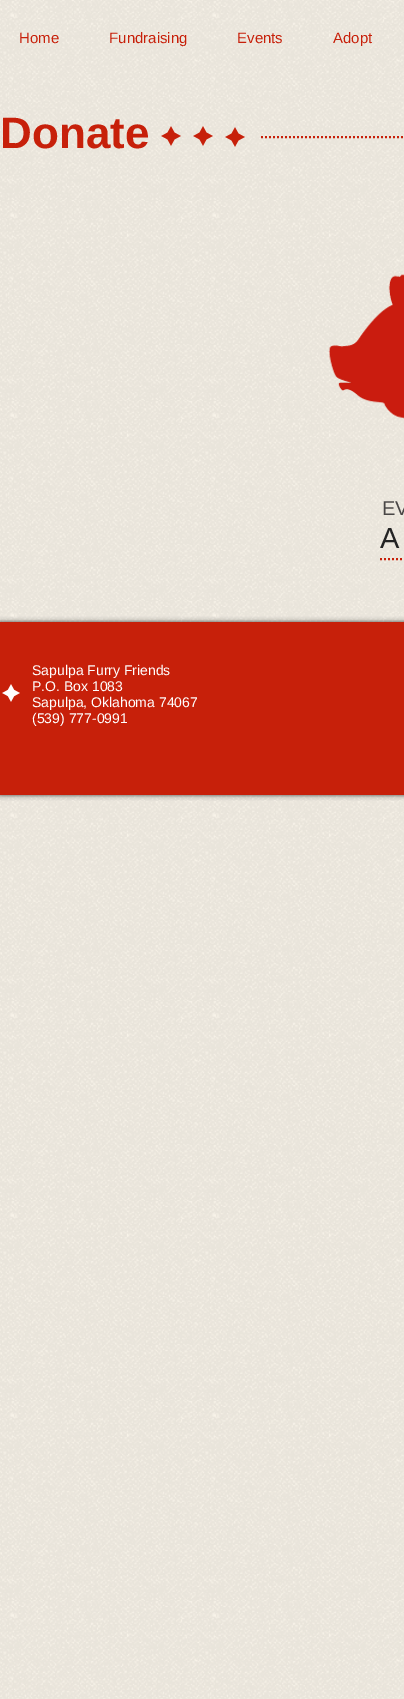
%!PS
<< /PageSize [404 1699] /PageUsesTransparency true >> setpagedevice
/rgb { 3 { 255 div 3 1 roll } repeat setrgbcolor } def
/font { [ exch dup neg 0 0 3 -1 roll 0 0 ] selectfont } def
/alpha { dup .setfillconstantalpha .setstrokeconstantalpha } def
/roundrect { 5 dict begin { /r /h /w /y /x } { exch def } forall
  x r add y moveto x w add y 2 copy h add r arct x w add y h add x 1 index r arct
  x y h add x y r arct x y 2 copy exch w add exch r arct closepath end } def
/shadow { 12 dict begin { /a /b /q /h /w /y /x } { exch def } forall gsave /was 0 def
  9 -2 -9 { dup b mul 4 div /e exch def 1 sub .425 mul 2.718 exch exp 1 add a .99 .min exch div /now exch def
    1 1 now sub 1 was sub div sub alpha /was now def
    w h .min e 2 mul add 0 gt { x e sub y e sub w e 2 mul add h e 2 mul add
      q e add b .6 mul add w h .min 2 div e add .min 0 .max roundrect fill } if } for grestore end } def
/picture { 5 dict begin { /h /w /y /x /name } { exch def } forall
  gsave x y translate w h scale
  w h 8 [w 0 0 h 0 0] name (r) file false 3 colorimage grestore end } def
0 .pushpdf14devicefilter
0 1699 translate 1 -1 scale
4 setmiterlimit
255 255 255 rgb
0 0 404 1699 rectfill
(img/1.rgb) 0 0 404 1699 picture
(img/2.rgb) 161 126 20 20 picture
(img/3.rgb) 193 126 20 20 picture
(img/4.rgb) 225 127 20 20 picture
199 32 10 rgb
2 setlinewidth
[2 2] 0 setdash
261 137 moveto 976 137 lineto stroke
(img/5.rgb) 328 274 76 145 picture
380 559 moveto 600 559 lineto stroke
0 0 0 rgb
0 622 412 173 0 2.5 0.7 shadow
199 32 10 rgb
0 622 404 173 rectfill
(img/6.rgb) 2 684 18 18 picture
/LiberationSans-Regular 15 font
[
  [(Home) 19 43]
  [(Fundraising) 109 43]
  [(Events) 237 43]
  [(Adopt) 333 43]
] { aload pop moveto show } forall
/LiberationSans-Bold 44 font
0 148 moveto (Donate) show
/LiberationSans-Regular 20 font
73 70 70 rgb
382 515 moveto (EV) show
/LiberationSans-Regular 29 font
35 35 35 rgb
380 548 moveto (A) show
/LiberationSans-Regular 14 font
255 255 255 rgb
[
  [(Sapulpa Furry Friends) 32 675]
  [(P.O. Box 1083) 32 691]
  [(Sapulpa, Oklahoma 74067) 32 707]
  [(\(539\) 777-0991) 32 723]
] { aload pop moveto show } forall
.poppdf14devicefilter showpage
